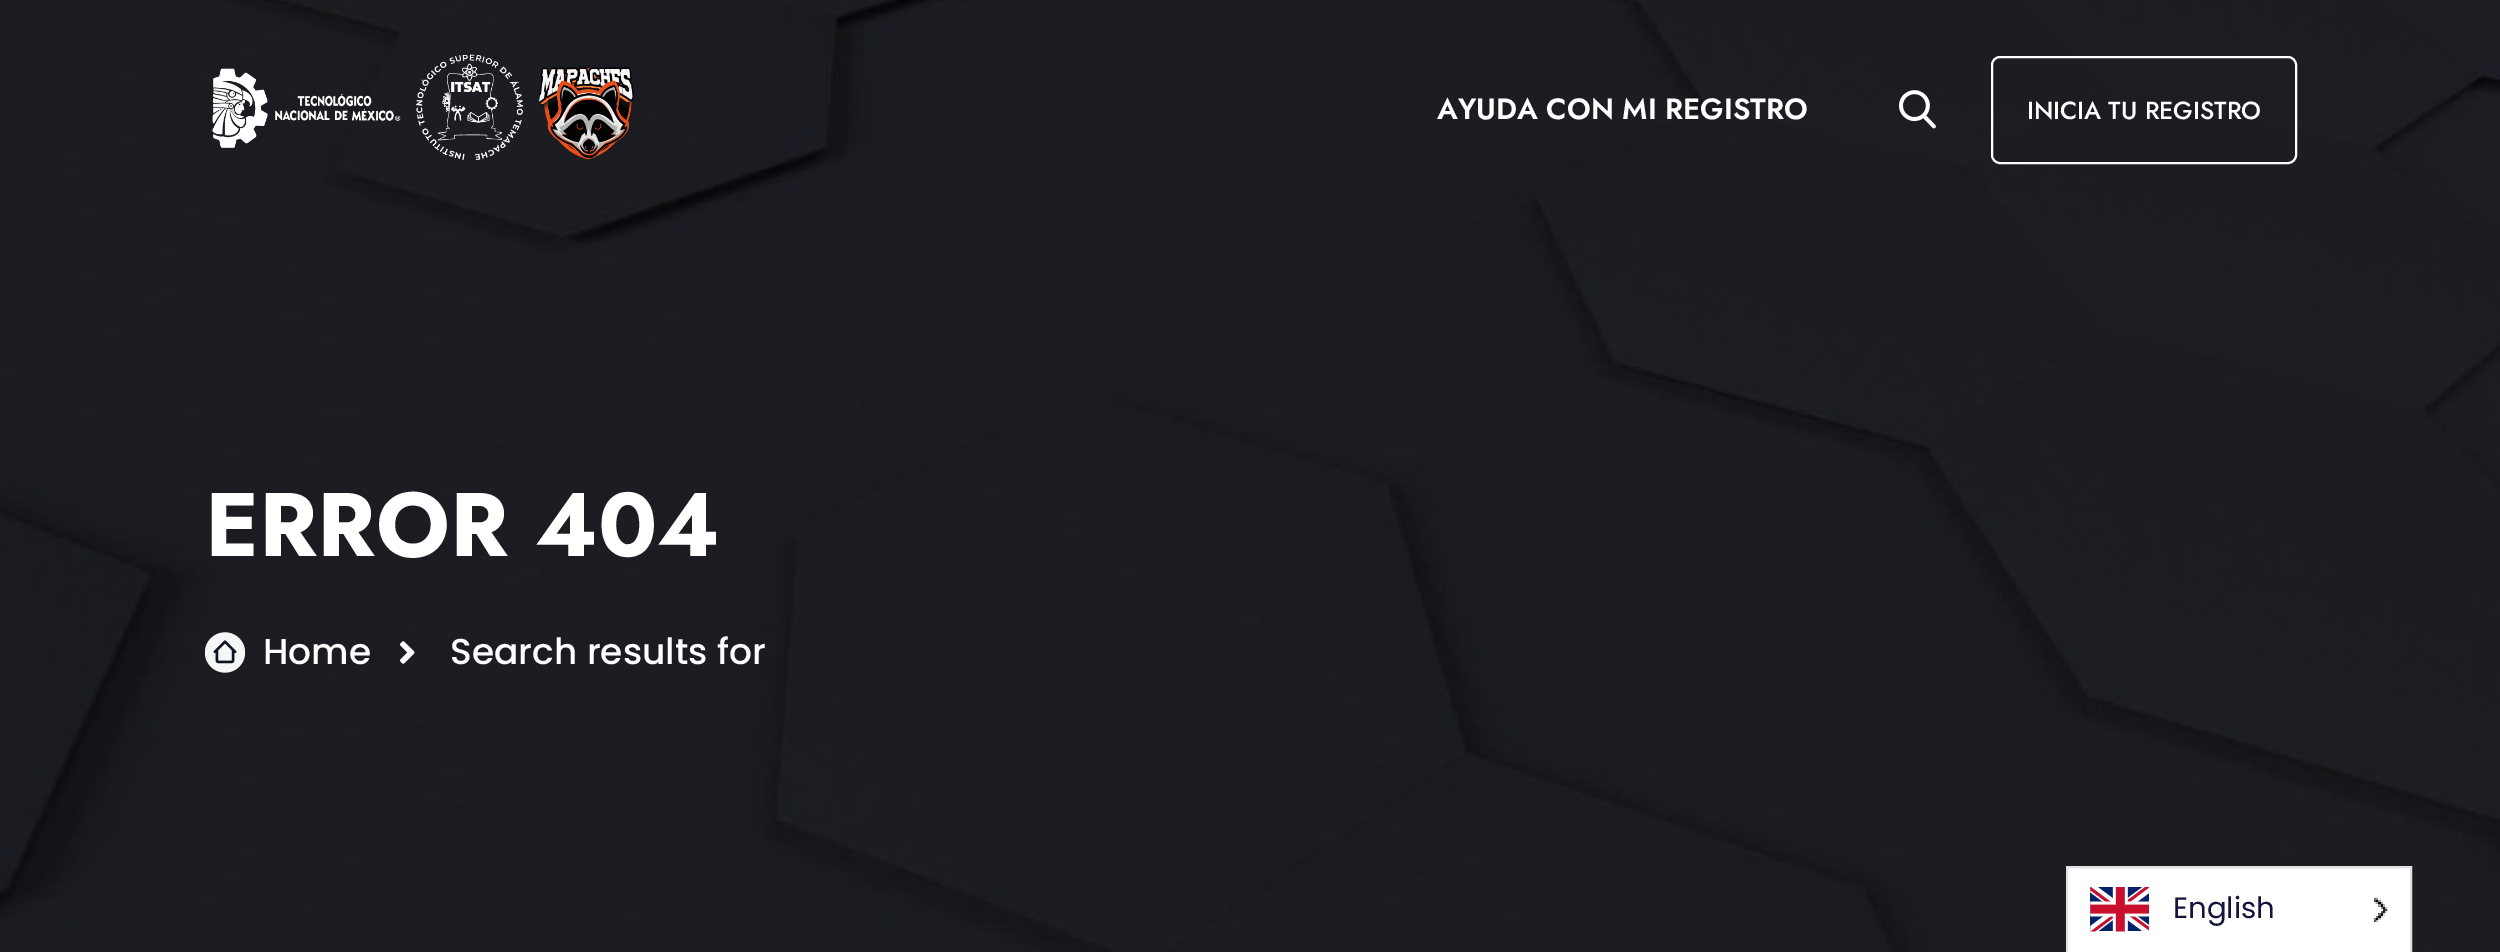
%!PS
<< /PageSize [2500 952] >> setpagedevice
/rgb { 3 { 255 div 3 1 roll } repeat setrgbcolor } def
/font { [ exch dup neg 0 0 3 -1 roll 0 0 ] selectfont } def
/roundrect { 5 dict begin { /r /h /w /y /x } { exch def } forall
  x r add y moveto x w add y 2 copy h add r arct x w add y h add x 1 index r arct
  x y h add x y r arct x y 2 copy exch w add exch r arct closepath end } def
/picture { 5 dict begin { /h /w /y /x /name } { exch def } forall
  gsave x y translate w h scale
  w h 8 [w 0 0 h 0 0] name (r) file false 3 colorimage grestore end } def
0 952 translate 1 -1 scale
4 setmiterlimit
255 255 255 rgb
0 0 2500 952 rectfill
(img/3.rgb) 0 0 2500 952 picture
(img/1.rgb) 212 54 422 106 picture
(img/2.rgb) 1899 90 37 39 picture
2 setlinewidth
1992 57 304 106 8 roundrect stroke
(img/4.rgb) 205 632 40 41 picture
(img/5.rgb) 400 641 15 23 picture
2067 867 moveto 2411 867 lineto 2411 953 lineto 2067 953 lineto closepath gsave fill grestore
224 224 224 rgb
stroke
(img/6.rgb) 2090 887 59 45 picture
(img/7.rgb) 2374 897 14 25 picture
/Jost-SemiBold 29.25 font
255 255 255 rgb
1437 119 moveto (AYUDA CON MI REGISTRO) show
/Jost-Medium 24.75 font
2027 119 moveto (INICIA TU REGISTRO) show
/Jost-Bold 90 font
205 556 moveto (ERROR 404) show
/Poppins-Medium 36 font
263 664 moveto (Home) show
450 664 moveto (Search results for) show
/Poppins-Regular 29.25 font
20 19 59 rgb
2173 918 moveto (English) show
showpage
